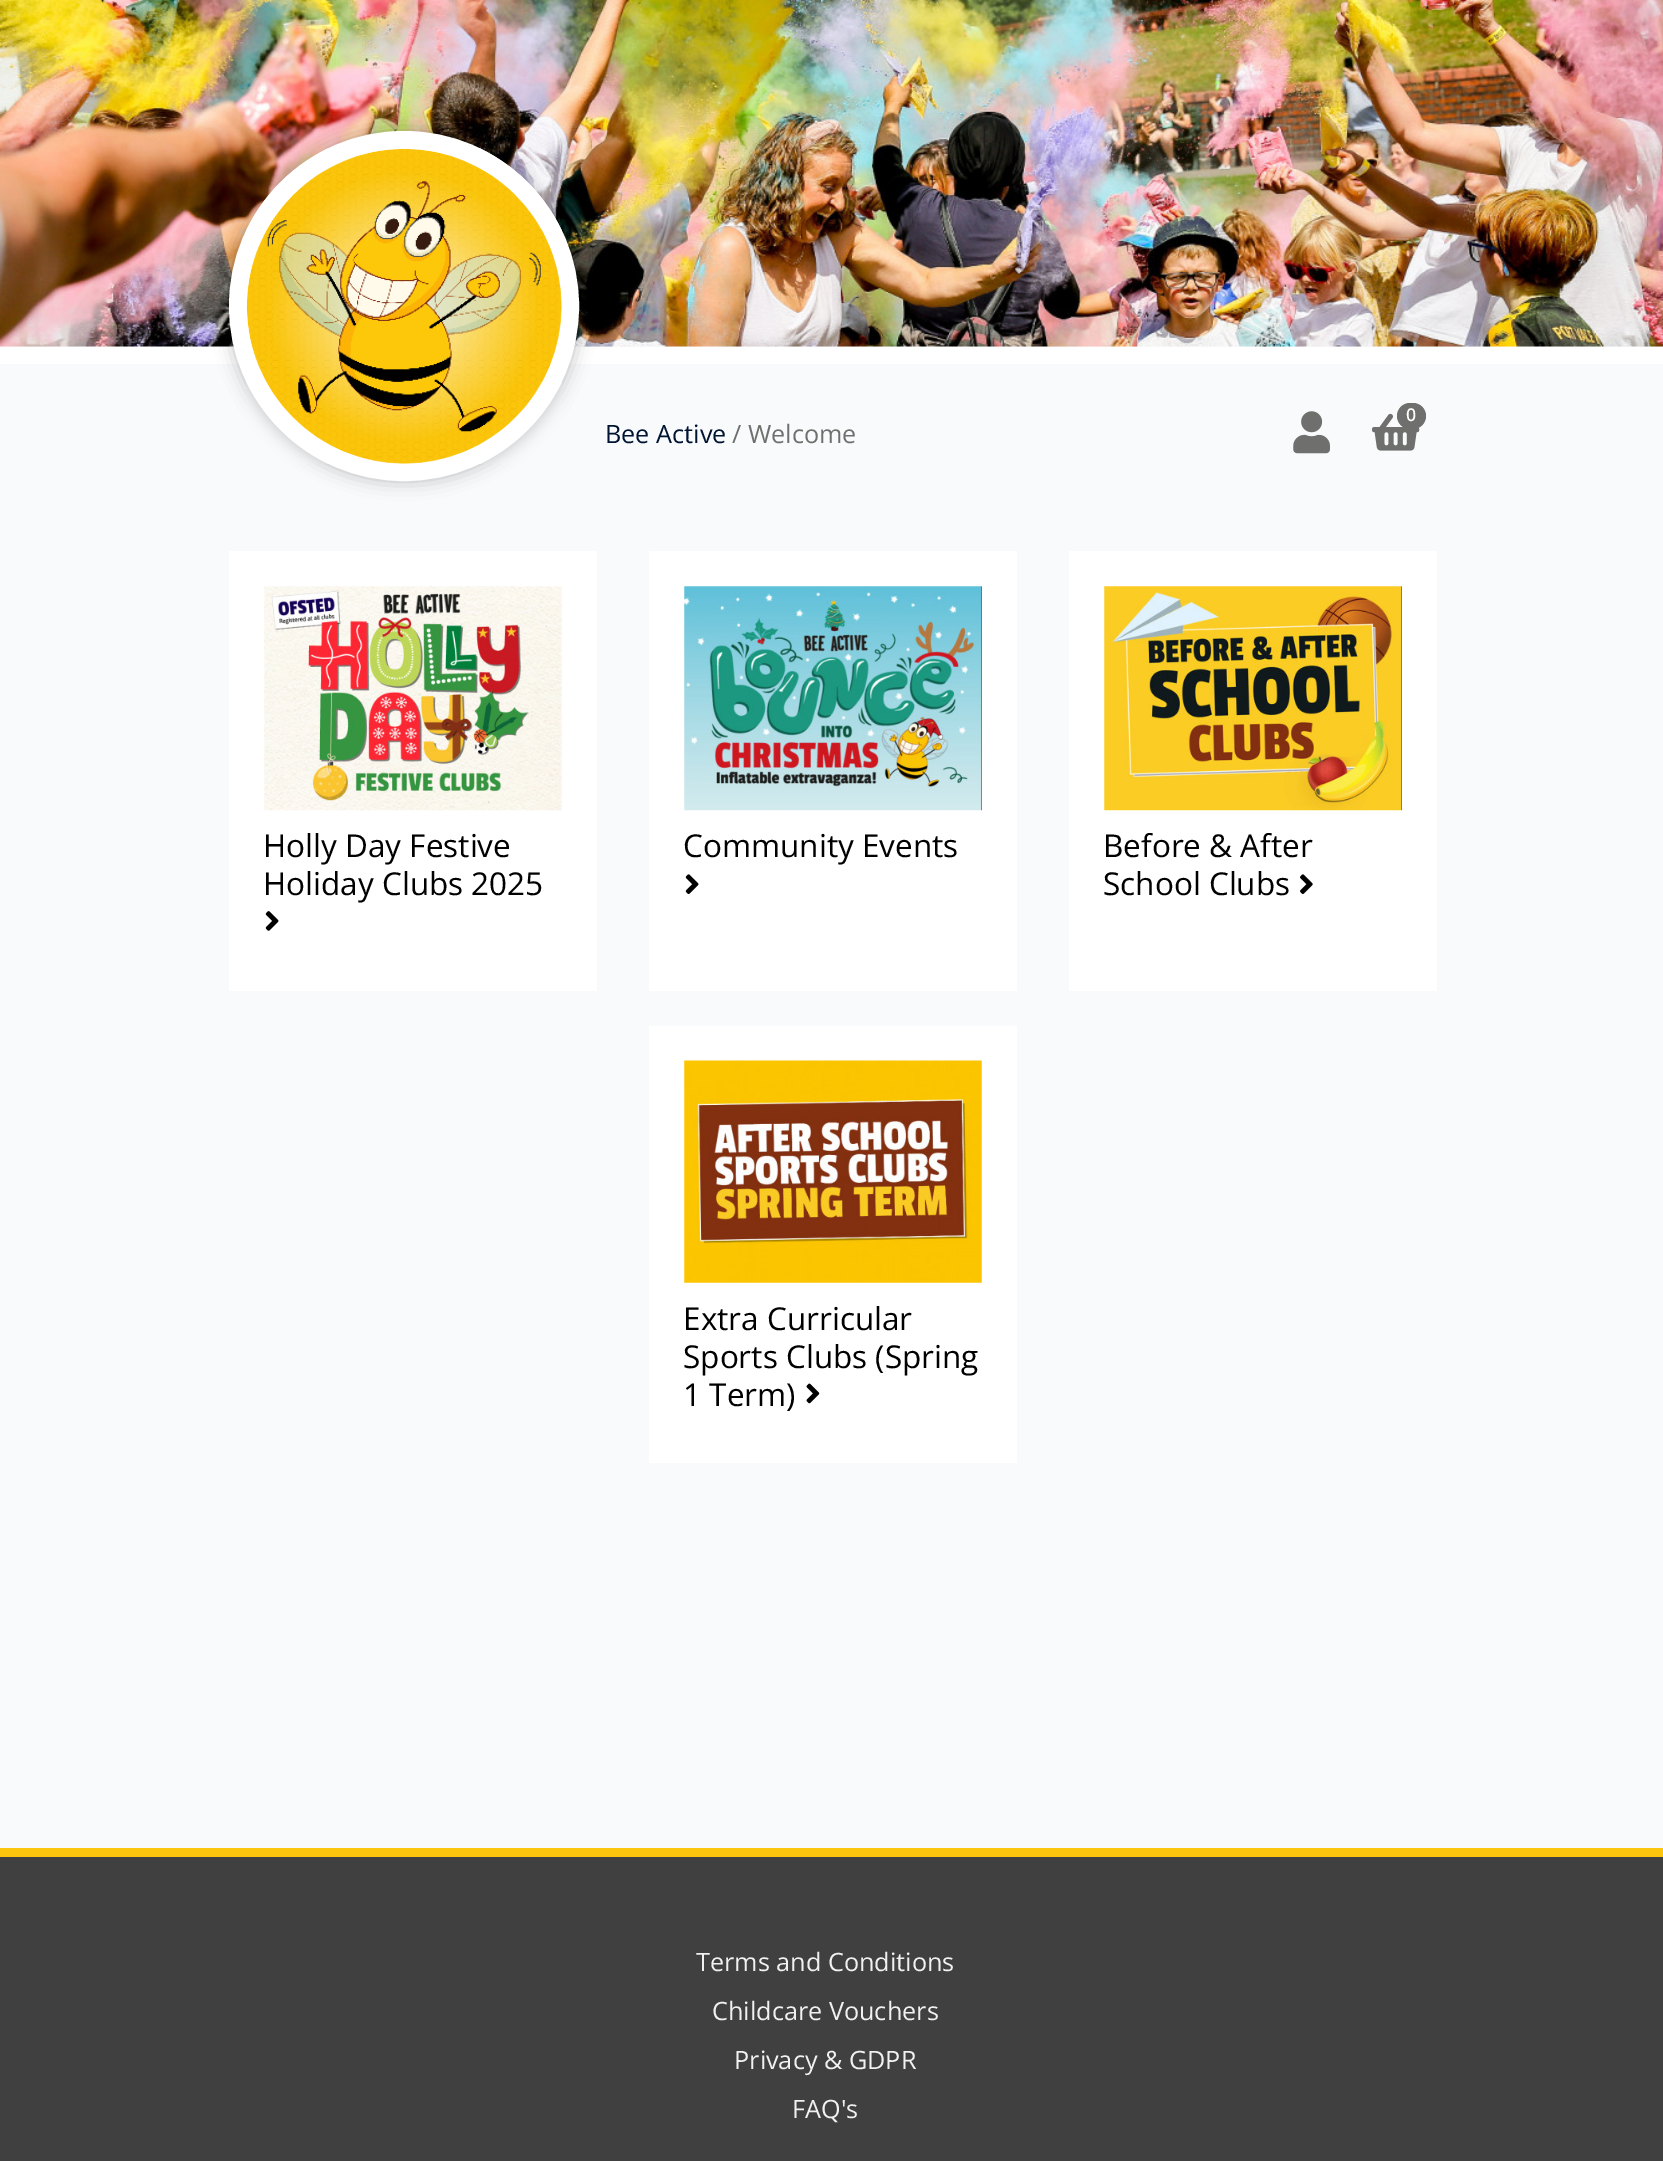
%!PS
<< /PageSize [1663 2161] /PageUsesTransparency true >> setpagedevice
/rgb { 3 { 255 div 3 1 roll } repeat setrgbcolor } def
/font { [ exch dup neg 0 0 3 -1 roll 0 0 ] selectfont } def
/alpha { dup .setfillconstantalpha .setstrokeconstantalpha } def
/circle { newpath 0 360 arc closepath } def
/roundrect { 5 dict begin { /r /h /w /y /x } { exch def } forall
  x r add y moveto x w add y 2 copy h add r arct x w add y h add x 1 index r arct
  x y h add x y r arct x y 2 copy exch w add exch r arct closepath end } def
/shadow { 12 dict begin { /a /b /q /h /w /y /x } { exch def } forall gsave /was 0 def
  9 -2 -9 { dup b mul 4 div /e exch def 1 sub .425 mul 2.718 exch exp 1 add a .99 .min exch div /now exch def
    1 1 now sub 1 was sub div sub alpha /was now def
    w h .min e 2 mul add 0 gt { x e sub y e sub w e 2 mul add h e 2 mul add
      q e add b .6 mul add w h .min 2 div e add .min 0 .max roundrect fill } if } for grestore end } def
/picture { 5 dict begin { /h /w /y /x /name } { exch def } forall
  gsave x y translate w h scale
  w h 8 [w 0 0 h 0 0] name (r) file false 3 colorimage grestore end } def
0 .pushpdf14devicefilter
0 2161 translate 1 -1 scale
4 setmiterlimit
248 250 252 rgb
0 0 1663 2161 rectfill
255 255 255 rgb
0 347 1663 17 rectfill
(img/1.rgb) 0 0 1663 347 picture
0 0 0 rgb
229 131 350 350 175 9 0.25 shadow
255 255 255 rgb
404 306 166 circle gsave fill grestore
18 setlinewidth
stroke
(img/2.rgb) 246 148 316 316 picture
(img/3.rgb) 1293 411 37 43 picture
(img/4.rgb) 1372 413 48 38 picture
111 111 110 rgb
1397 403 29 26 13 roundrect fill
255 255 255 rgb
229 551 368 440 rectfill
(img/5.rgb) 264 586 298 225 picture
(img/6.rgb) 265 911 14 20 picture
649 551 368 440 rectfill
(img/7.rgb) 684 586 298 225 picture
(img/8.rgb) 685 874 14 20 picture
1069 551 368 440 rectfill
(img/9.rgb) 1104 586 298 225 picture
(img/10.rgb) 1300 874 13 20 picture
649 1026 368 437 rectfill
(img/11.rgb) 684 1060 298 223 picture
(img/12.rgb) 806 1383 14 21 picture
64 64 65 rgb
0 1857 1663 304 rectfill
251 198 13 rgb
0 1848 1663 9 rectfill
/OpenSans-Bold 17 font
255 255 255 rgb
1406 421 moveto (0) show
/OpenSans-Regular 25.25 font
0 19 49 rgb
605 443 moveto (Bee Active) show
111 111 110 rgb
732 443 moveto (/ Welcome) show
/OpenSans-Regular 31.5 font
0 0 0 rgb
[
  [(Holly Day Festive) 263 857]
  [(Holiday Clubs 2025) 263 895]
  [(Community Events) 683 857]
  [(Before & After) 1103 857]
  [(School Clubs) 1103 895]
  [(Extra Curricular) 683 1330]
  [(Sports Clubs \(Spring) 683 1368]
  [(1 Term\)) 683 1406]
] { aload pop moveto show } forall
/OpenSans-Regular 25.25 font
241 241 241 rgb
[
  [(Terms and Conditions) 696 1971]
  [(Childcare Vouchers) 712 2020]
  [(Privacy & GDPR) 734 2069]
  [(FAQ's) 792 2118]
] { aload pop moveto show } forall
.poppdf14devicefilter showpage
